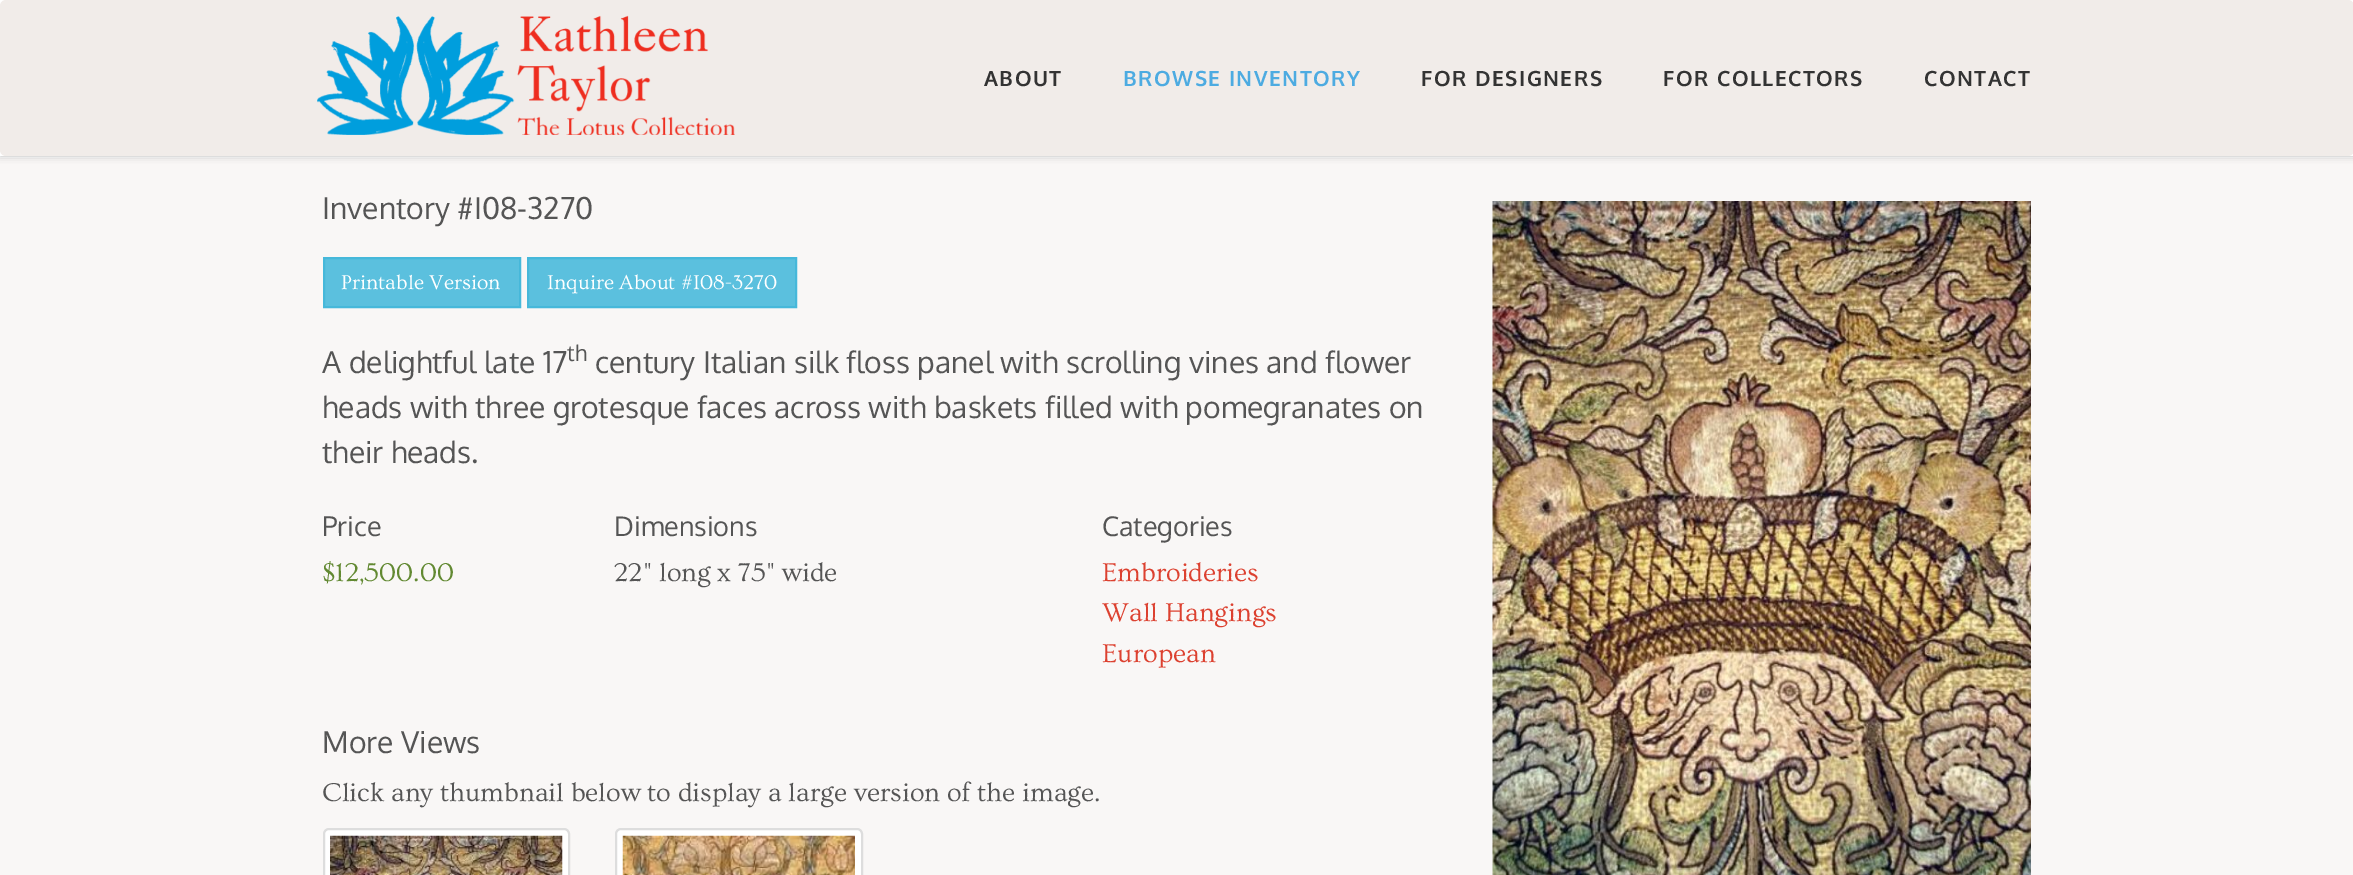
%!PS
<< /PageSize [2353 875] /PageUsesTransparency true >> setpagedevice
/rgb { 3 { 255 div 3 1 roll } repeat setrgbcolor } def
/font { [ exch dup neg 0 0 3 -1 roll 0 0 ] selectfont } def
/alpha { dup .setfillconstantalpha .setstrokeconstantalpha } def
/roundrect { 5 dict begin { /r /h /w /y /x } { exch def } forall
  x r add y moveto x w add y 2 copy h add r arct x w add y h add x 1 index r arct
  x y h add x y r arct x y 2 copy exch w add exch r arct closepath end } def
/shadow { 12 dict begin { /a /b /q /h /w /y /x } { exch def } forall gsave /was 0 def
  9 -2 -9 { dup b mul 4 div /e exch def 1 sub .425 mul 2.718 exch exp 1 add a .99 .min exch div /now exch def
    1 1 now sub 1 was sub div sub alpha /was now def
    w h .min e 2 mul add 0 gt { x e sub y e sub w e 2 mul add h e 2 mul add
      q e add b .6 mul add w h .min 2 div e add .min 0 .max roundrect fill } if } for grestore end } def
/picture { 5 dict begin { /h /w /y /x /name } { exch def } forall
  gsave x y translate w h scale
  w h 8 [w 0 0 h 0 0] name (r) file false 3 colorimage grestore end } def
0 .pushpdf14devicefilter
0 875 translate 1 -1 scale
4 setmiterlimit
255 255 255 rgb
0 0 2353 875 rectfill
249 247 246 rgb
0 158 2353 717 rectfill
gsave
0 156 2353 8 rectclip
187 187 187 rgb
0 0 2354 156 0 4 1 shadow
grestore
241 236 233 rgb
0 0 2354 156 6 roundrect fill
(img/1.rgb) 317 15 418 120 picture
91 192 222 rgb
324 258 moveto 520 258 lineto 520 307 lineto 324 307 lineto closepath gsave fill grestore
70 184 218 rgb
2 setlinewidth
stroke
91 192 222 rgb
528 258 moveto 796 258 lineto 796 307 lineto 528 307 lineto closepath gsave fill grestore
70 184 218 rgb
stroke
255 255 255 rgb
324 829 245 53 5 roundrect gsave fill grestore
221 221 221 rgb
stroke
(img/2.rgb) 330 835 233 40 picture
255 255 255 rgb
616 829 246 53 5 roundrect gsave fill grestore
221 221 221 rgb
stroke
(img/3.rgb) 622 835 233 40 picture
(img/4.rgb) 1492 201 539 674 picture
/Oxygen-Bold 21 font
51 51 51 rgb
984 86 moveto 1.5 0 (ABOUT) ashow
77 171 225 rgb
1123 86 moveto 1.5 0 (BROWSE INVENTORY) ashow
51 51 51 rgb
1421 86 moveto 1.5 0 (FOR DESIGNERS) ashow
1663 86 moveto 1.5 0 (FOR COLLECTORS) ashow
1924 86 moveto 1.5 0 (CONTACT) ashow
/Oxygen-Regular 30 font
85 85 85 rgb
322 219 moveto (Inventory #I08-3270) show
/Ovo-Regular 21 font
255 255 255 rgb
341 289 moveto (Printable Version) show
547 289 moveto (Inquire About #I08-3270) show
/Oxygen-Regular 30 font
85 85 85 rgb
322 373 moveto (A delightful late 17) show
/Oxygen-Regular 22 font
567 361 moveto (th) show
/Oxygen-Regular 30 font
[
  [(century Italian silk floss panel with scrolling vines and flower) 595 373]
  [(heads with three grotesque faces across with baskets filled with pomegranates on) 322 418]
  [(their heads.) 322 463]
] { aload pop moveto show } forall
/Oxygen-Regular 27 font
322 536 moveto (Price) show
/Ovo-Regular 27 font
98 137 50 rgb
322 581 moveto ($12,500.00) show
/Oxygen-Regular 27 font
85 85 85 rgb
614 536 moveto (Dimensions) show
/Ovo-Regular 27 font
614 581 moveto (22" long x 75" wide) show
/Oxygen-Regular 27 font
1102 536 moveto (Categories) show
/Ovo-Regular 27 font
220 65 48 rgb
[
  [(Embroideries) 1102 581]
  [(Wall Hangings) 1102 621]
  [(European) 1102 662]
] { aload pop moveto show } forall
/Oxygen-Regular 30 font
85 85 85 rgb
322 753 moveto (More Views) show
/Ovo-Regular 27 font
322 801 moveto (Click any thumbnail below to display a large version of the image.) show
.poppdf14devicefilter showpage
